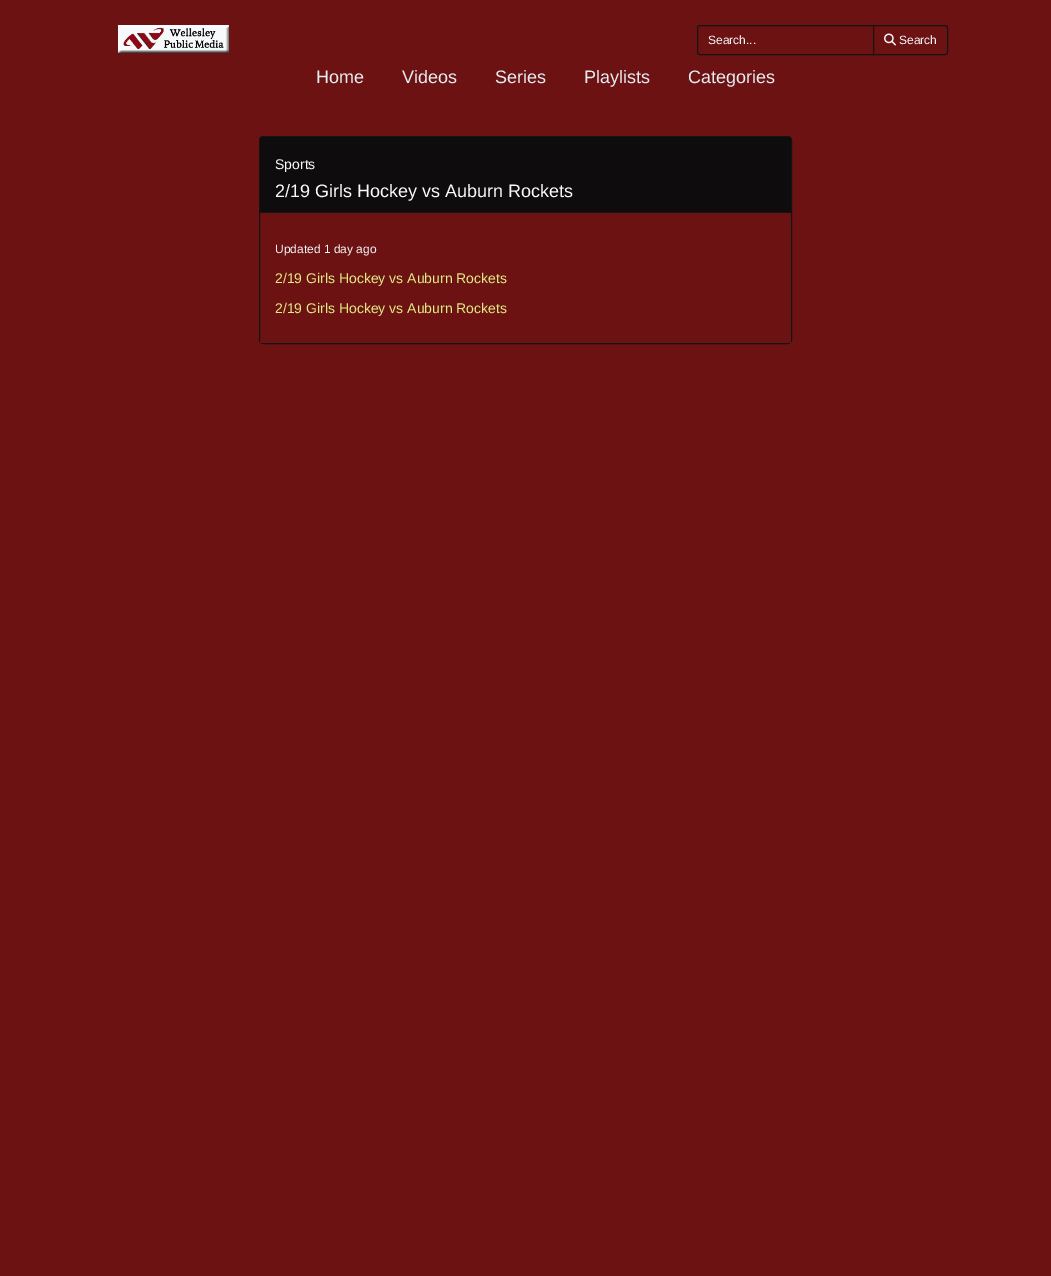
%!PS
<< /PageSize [1051 1276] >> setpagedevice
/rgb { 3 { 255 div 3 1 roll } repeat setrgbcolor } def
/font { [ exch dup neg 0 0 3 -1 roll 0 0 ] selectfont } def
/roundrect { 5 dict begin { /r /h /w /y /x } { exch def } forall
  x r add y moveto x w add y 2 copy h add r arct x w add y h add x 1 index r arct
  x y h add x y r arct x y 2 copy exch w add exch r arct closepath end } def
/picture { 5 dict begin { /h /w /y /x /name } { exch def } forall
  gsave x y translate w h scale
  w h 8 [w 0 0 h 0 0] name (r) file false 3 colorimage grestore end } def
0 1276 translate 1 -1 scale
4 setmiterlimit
109 18 18 rgb
0 0 1051 1276 rectfill
(img/1.rgb) 118 25 111 28 picture
101 17 17 rgb
700 27 moveto 873 27 lineto 873 26 lineto 699 26 lineto 698 27 698 28 698 29 curveto 698 28 699 27 700 27 curveto closepath fill
21 20 20 rgb
700 25.5 moveto 873.5 25.5 lineto 873.5 54.5 lineto 700 54.5 lineto 698.5 54.5 697.5 53.5 697.5 52 curveto 697.5 28 lineto 697.5 26.5 698.5 25.5 700 25.5 curveto closepath stroke
109 18 18 rgb
873.5 25.5 moveto 945 25.5 lineto 946.5 25.5 947.5 26.5 947.5 28 curveto 947.5 52 lineto 947.5 53.5 946.5 54.5 945 54.5 curveto 873.5 54.5 lineto closepath gsave fill grestore
21 20 20 rgb
stroke
(img/2.rgb) 884 33 12 13 picture
259.5 136.5 532 207 3.5 roundrect stroke
14 12 12 rgb
263 137 moveto 788 137 lineto 789.5 137 791 138.5 791 140 curveto 791 213 lineto 260 213 lineto 260 140 lineto 260 138.5 261.5 137 263 137 curveto closepath fill
21 20 20 rgb
260 212 531 1 rectfill
109 18 18 rgb
260 340 531 3 rectfill
/LiberationSans-Regular 12 font
243 247 250 rgb
708 44 moveto (Search...) show
899 44 moveto (Search) show
/LiberationSans-Regular 18 font
231 237 242 rgb
[
  [(Home) 316 83]
  [(Videos) 402 83]
  [(Series) 495 83]
  [(Playlists) 584 83]
  [(Categories) 688 83]
] { aload pop moveto show } forall
/LiberationSans-Regular 14 font
249 250 252 rgb
275 169 moveto (Sports) show
/LiberationSans-Regular 18 font
275 197 moveto (2/19 Girls Hockey vs Auburn Rockets) show
/LiberationSans-Regular 12 font
243 247 250 rgb
275 253 moveto (Updated 1 day ago) show
/LiberationSans-Regular 14 font
226 235 134 rgb
275 283 moveto (2/19 Girls Hockey vs Auburn Rockets) show
275 313 moveto (2/19 Girls Hockey vs Auburn Rockets) show
showpage
